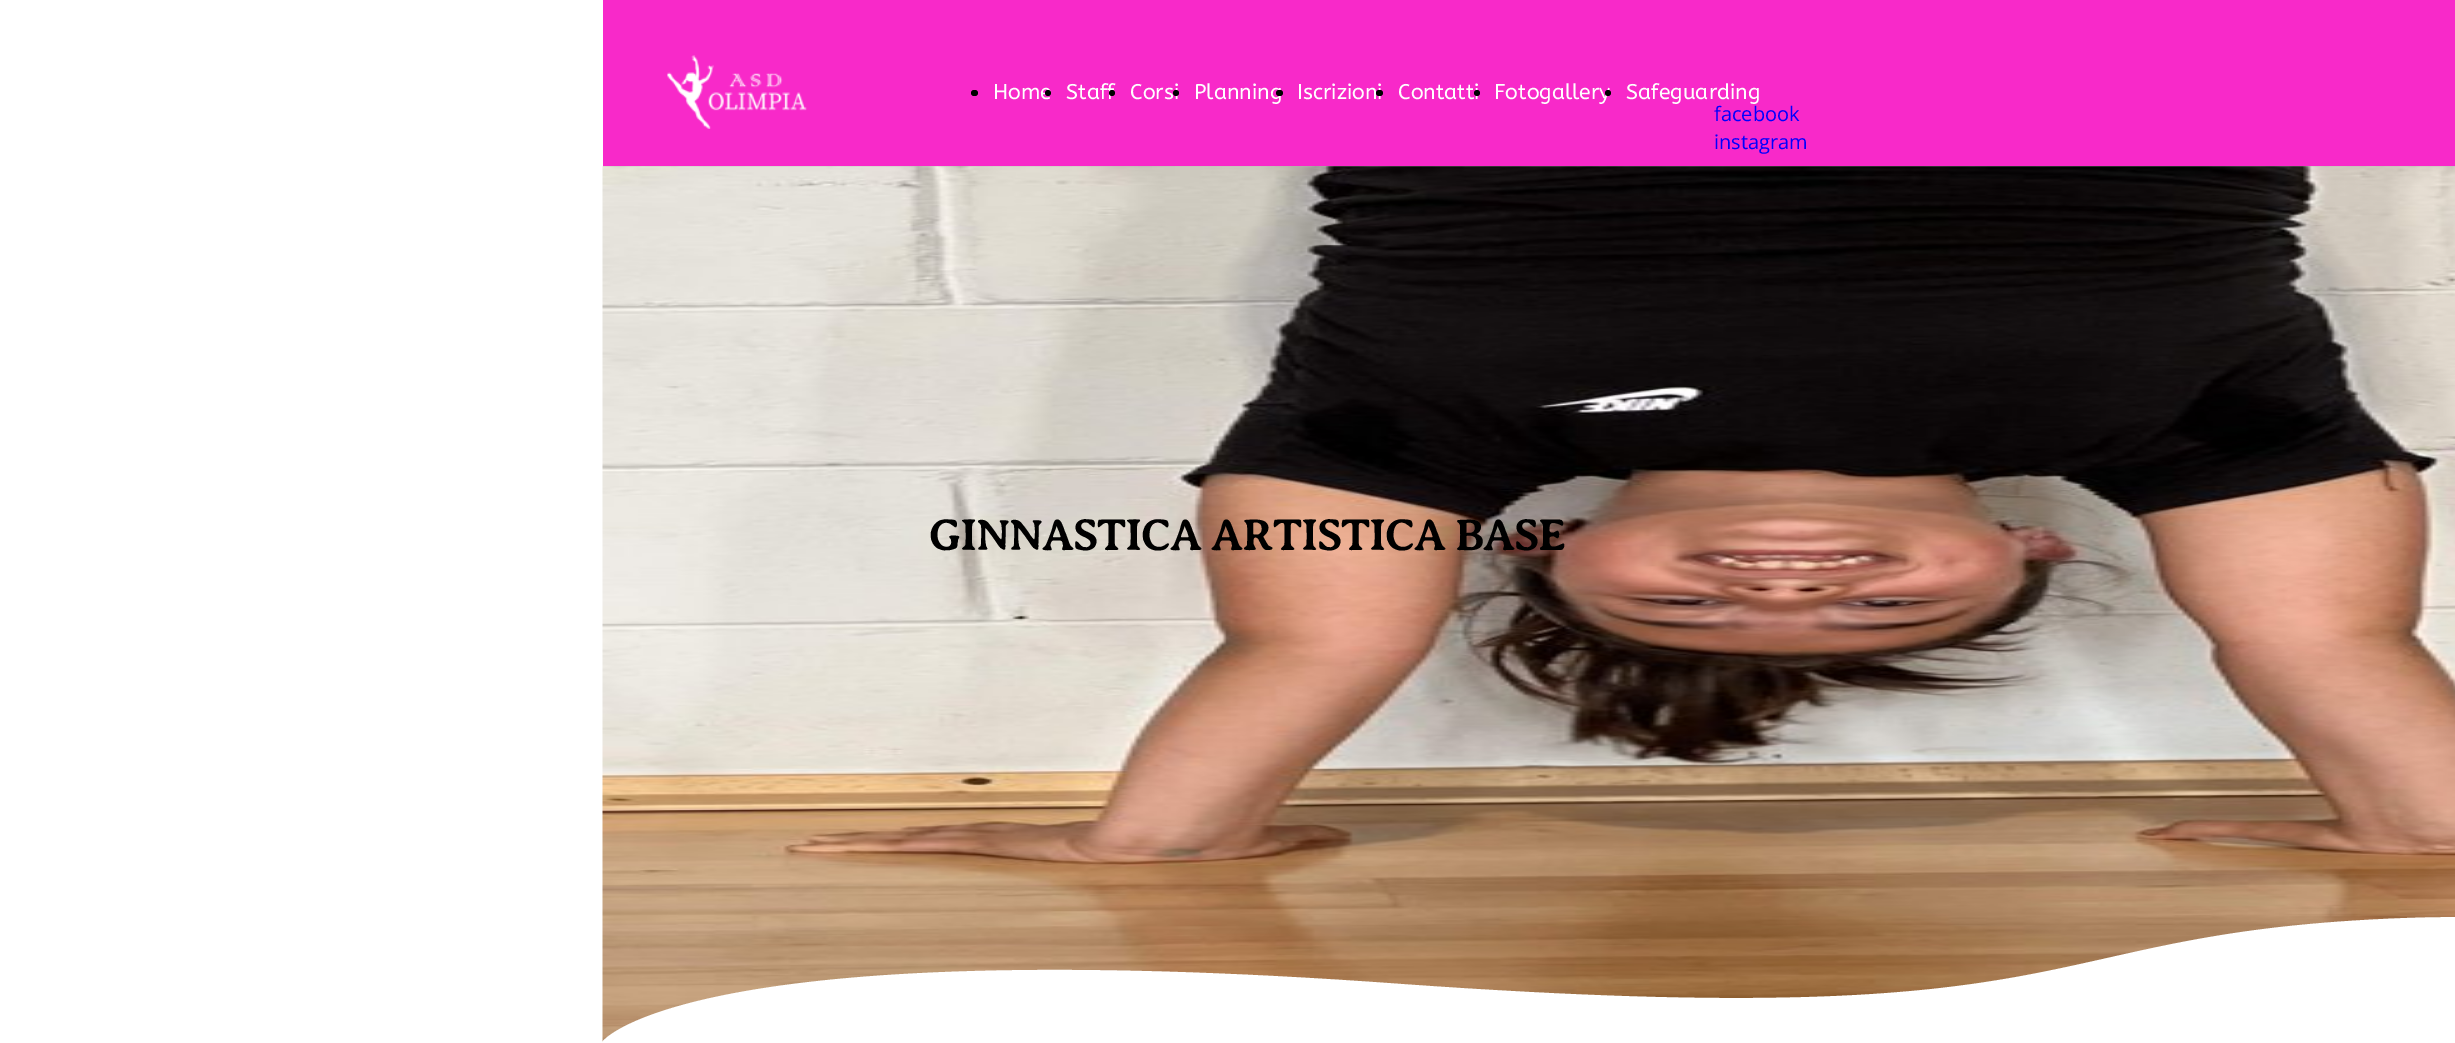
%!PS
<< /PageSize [2455 1043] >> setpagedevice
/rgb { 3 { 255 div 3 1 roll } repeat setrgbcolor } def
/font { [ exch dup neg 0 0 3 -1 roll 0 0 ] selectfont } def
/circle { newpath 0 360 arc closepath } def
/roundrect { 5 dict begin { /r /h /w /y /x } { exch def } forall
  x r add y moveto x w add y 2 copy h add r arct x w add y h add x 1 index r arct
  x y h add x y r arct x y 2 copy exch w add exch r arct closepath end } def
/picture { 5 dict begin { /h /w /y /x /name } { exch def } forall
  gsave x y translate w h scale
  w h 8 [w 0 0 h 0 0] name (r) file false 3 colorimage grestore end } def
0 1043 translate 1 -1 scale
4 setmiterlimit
255 255 255 rgb
0 0 2455 1043 rectfill
248 41 201 rgb
603 0 1852 166 rectfill
(img/1.rgb) 667 55 140 74 picture
0 0 0 rgb
971 90 7 6 3 roundrect fill
(img/2.rgb) 602 166 1853 876 picture
255 255 255 rgb
603 1041 moveto 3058 1041 lineto 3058 1041 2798 905 2407 918 curveto 2017 932 2114 1035 1401 984 curveto 689 932 603 1041 603 1041 curveto closepath fill
603 1041 1852 1 rectfill
/ABeeZee-Regular 21.25 font
993 99 moveto (Home) show
0 0 0 rgb
1048 93 3 circle fill
255 255 255 rgb
1066 99 moveto (Staff) show
0 0 0 rgb
1112 93 3 circle fill
255 255 255 rgb
1130 99 moveto (Corsi) show
0 0 0 rgb
1176 93 3 circle fill
255 255 255 rgb
1194 99 moveto (Planning) show
0 0 0 rgb
1276 90 7 6 3 roundrect fill
255 255 255 rgb
1297 99 moveto (Iscrizioni) show
0 0 0 rgb
1376 90 7 6 3 roundrect fill
255 255 255 rgb
1398 99 moveto (Contatti) show
0 0 0 rgb
1477 93 3 circle fill
255 255 255 rgb
1494 99 moveto (Fotogallery) show
0 0 0 rgb
1608 93 3 circle fill
255 255 255 rgb
1626 99 moveto (Safeguarding) show
/OpenSans-Regular 20 font
0 0 255 rgb
1714 121 moveto (facebook) show
1714 149 moveto (instagram) show
/AveriaSerifLibre-Bold 45 font
0 0 0 rgb
929 550 moveto -1.25 0 (GINNASTICA ARTISTICA BASE) ashow
showpage
